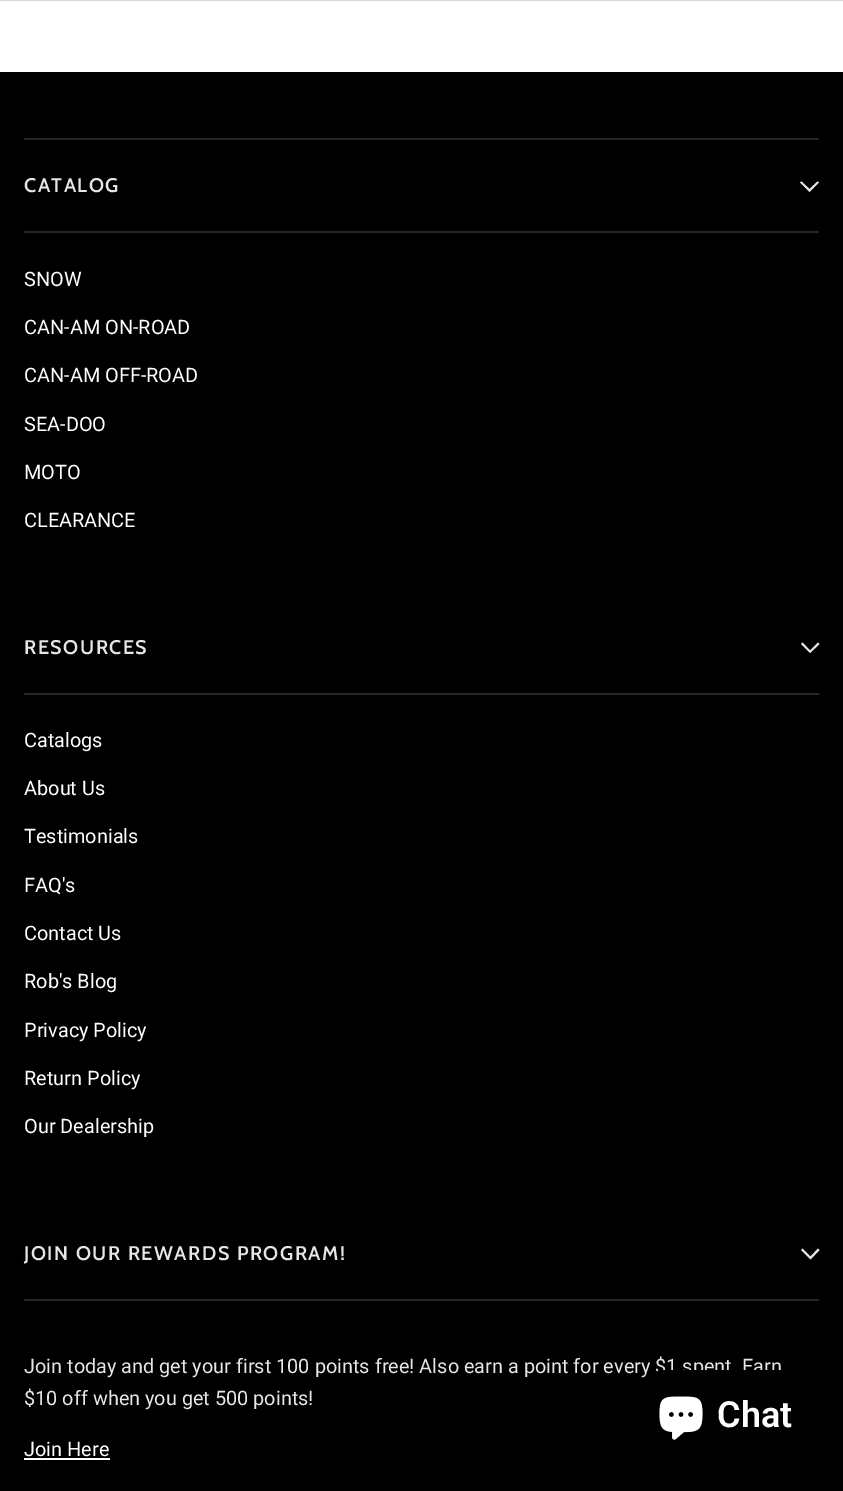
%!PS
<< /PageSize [843 1491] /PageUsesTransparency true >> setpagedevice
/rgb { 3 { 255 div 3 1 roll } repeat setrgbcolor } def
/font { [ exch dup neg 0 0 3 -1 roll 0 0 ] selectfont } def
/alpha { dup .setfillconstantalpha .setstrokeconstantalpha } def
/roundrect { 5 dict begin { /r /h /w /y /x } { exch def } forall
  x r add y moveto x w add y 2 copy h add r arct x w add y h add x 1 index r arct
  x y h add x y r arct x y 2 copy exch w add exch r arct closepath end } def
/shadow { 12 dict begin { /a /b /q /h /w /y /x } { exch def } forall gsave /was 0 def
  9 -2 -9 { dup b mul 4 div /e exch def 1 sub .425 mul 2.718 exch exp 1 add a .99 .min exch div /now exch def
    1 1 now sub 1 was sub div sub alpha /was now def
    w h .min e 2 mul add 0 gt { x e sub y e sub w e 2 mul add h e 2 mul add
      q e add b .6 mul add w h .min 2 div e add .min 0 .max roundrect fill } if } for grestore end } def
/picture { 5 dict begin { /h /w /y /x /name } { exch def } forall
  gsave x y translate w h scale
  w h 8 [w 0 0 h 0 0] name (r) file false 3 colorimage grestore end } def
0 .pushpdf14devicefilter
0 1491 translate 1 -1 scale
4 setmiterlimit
255 255 255 rgb
0 0 843 1491 rectfill
[
  [0 0 843 1 215 215 215]
  [0 72 843 1419 0 0 0]
  [24 138 795 2 38 38 38]
  [24 231 795 2 38 38 38]
] { aload pop rgb rectfill } forall
230 230 230 rgb
809.5 189 moveto 817.5 181.5 lineto 819 182.5 lineto 809.5 192 lineto 800 182.5 lineto 801.5 181.5 lineto closepath eofill
38 38 38 rgb
24 693 795 2 rectfill
230 230 230 rgb
810 650.5 moveto 818 642.5 lineto 819.5 644 lineto 810 653 lineto 801 644 lineto 802.5 642.5 lineto closepath eofill
38 38 38 rgb
24 1299 795 2 rectfill
230 230 230 rgb
810.5 1256.5 moveto 818 1248.5 lineto 819.5 1250 lineto 810.5 1259.5 lineto 801 1250 lineto 802.5 1248.5 lineto closepath eofill
255 255 255 rgb
24 1458 86 2 rectfill
0 0 0 rgb
641 1370 169 90 24 4 0.15 shadow
/Cabin-SemiBold 19.75 font
230 230 230 rgb
24 192 moveto 1.5 0 (CATALOG) ashow
/Roboto-Regular 19.9 font
255 255 255 rgb
[
  [(SNOW) 24 286]
  [(CAN-AM ON-ROAD) 24 334]
  [(CAN-AM OFF-ROAD) 24 382]
  [(SEA-DOO) 24 431]
  [(MOTO) 24 479]
  [(CLEARANCE) 24 527]
] { aload pop moveto show } forall
/Cabin-SemiBold 19.75 font
230 230 230 rgb
24 654 moveto 1.5 0 (RESOURCES) ashow
/Roboto-Regular 19.9 font
255 255 255 rgb
[
  [(Catalogs) 24 747]
  [(About Us) 24 795]
  [(Testimonials) 24 843]
  [(FAQ's) 24 892]
  [(Contact Us) 24 940]
  [(Rob's Blog) 24 988]
  [(Privacy Policy) 24 1037]
  [(Return Policy) 24 1085]
  [(Our Dealership) 24 1133]
] { aload pop moveto show } forall
/Cabin-SemiBold 19.75 font
230 230 230 rgb
24 1260 moveto 1.5 0 (JOIN OUR REWARDS PROGRAM!) ashow
/Roboto-Regular 19.9 font
24 1373 moveto (Join today and get your first 100 points free! Also earn a point for every $1 spent. Earn) show
24 1405 moveto ($10 off when you get 500 points!) show
255 255 255 rgb
24 1456 moveto (Join Here) show
0 0 0 rgb
641 1370 169 90 24 roundrect fill
(img/1.rgb) 659 1396 44 44 picture
/Roboto-SemiBold 36 font
255 255 255 rgb
717 1427 moveto (Chat) show
.poppdf14devicefilter showpage
